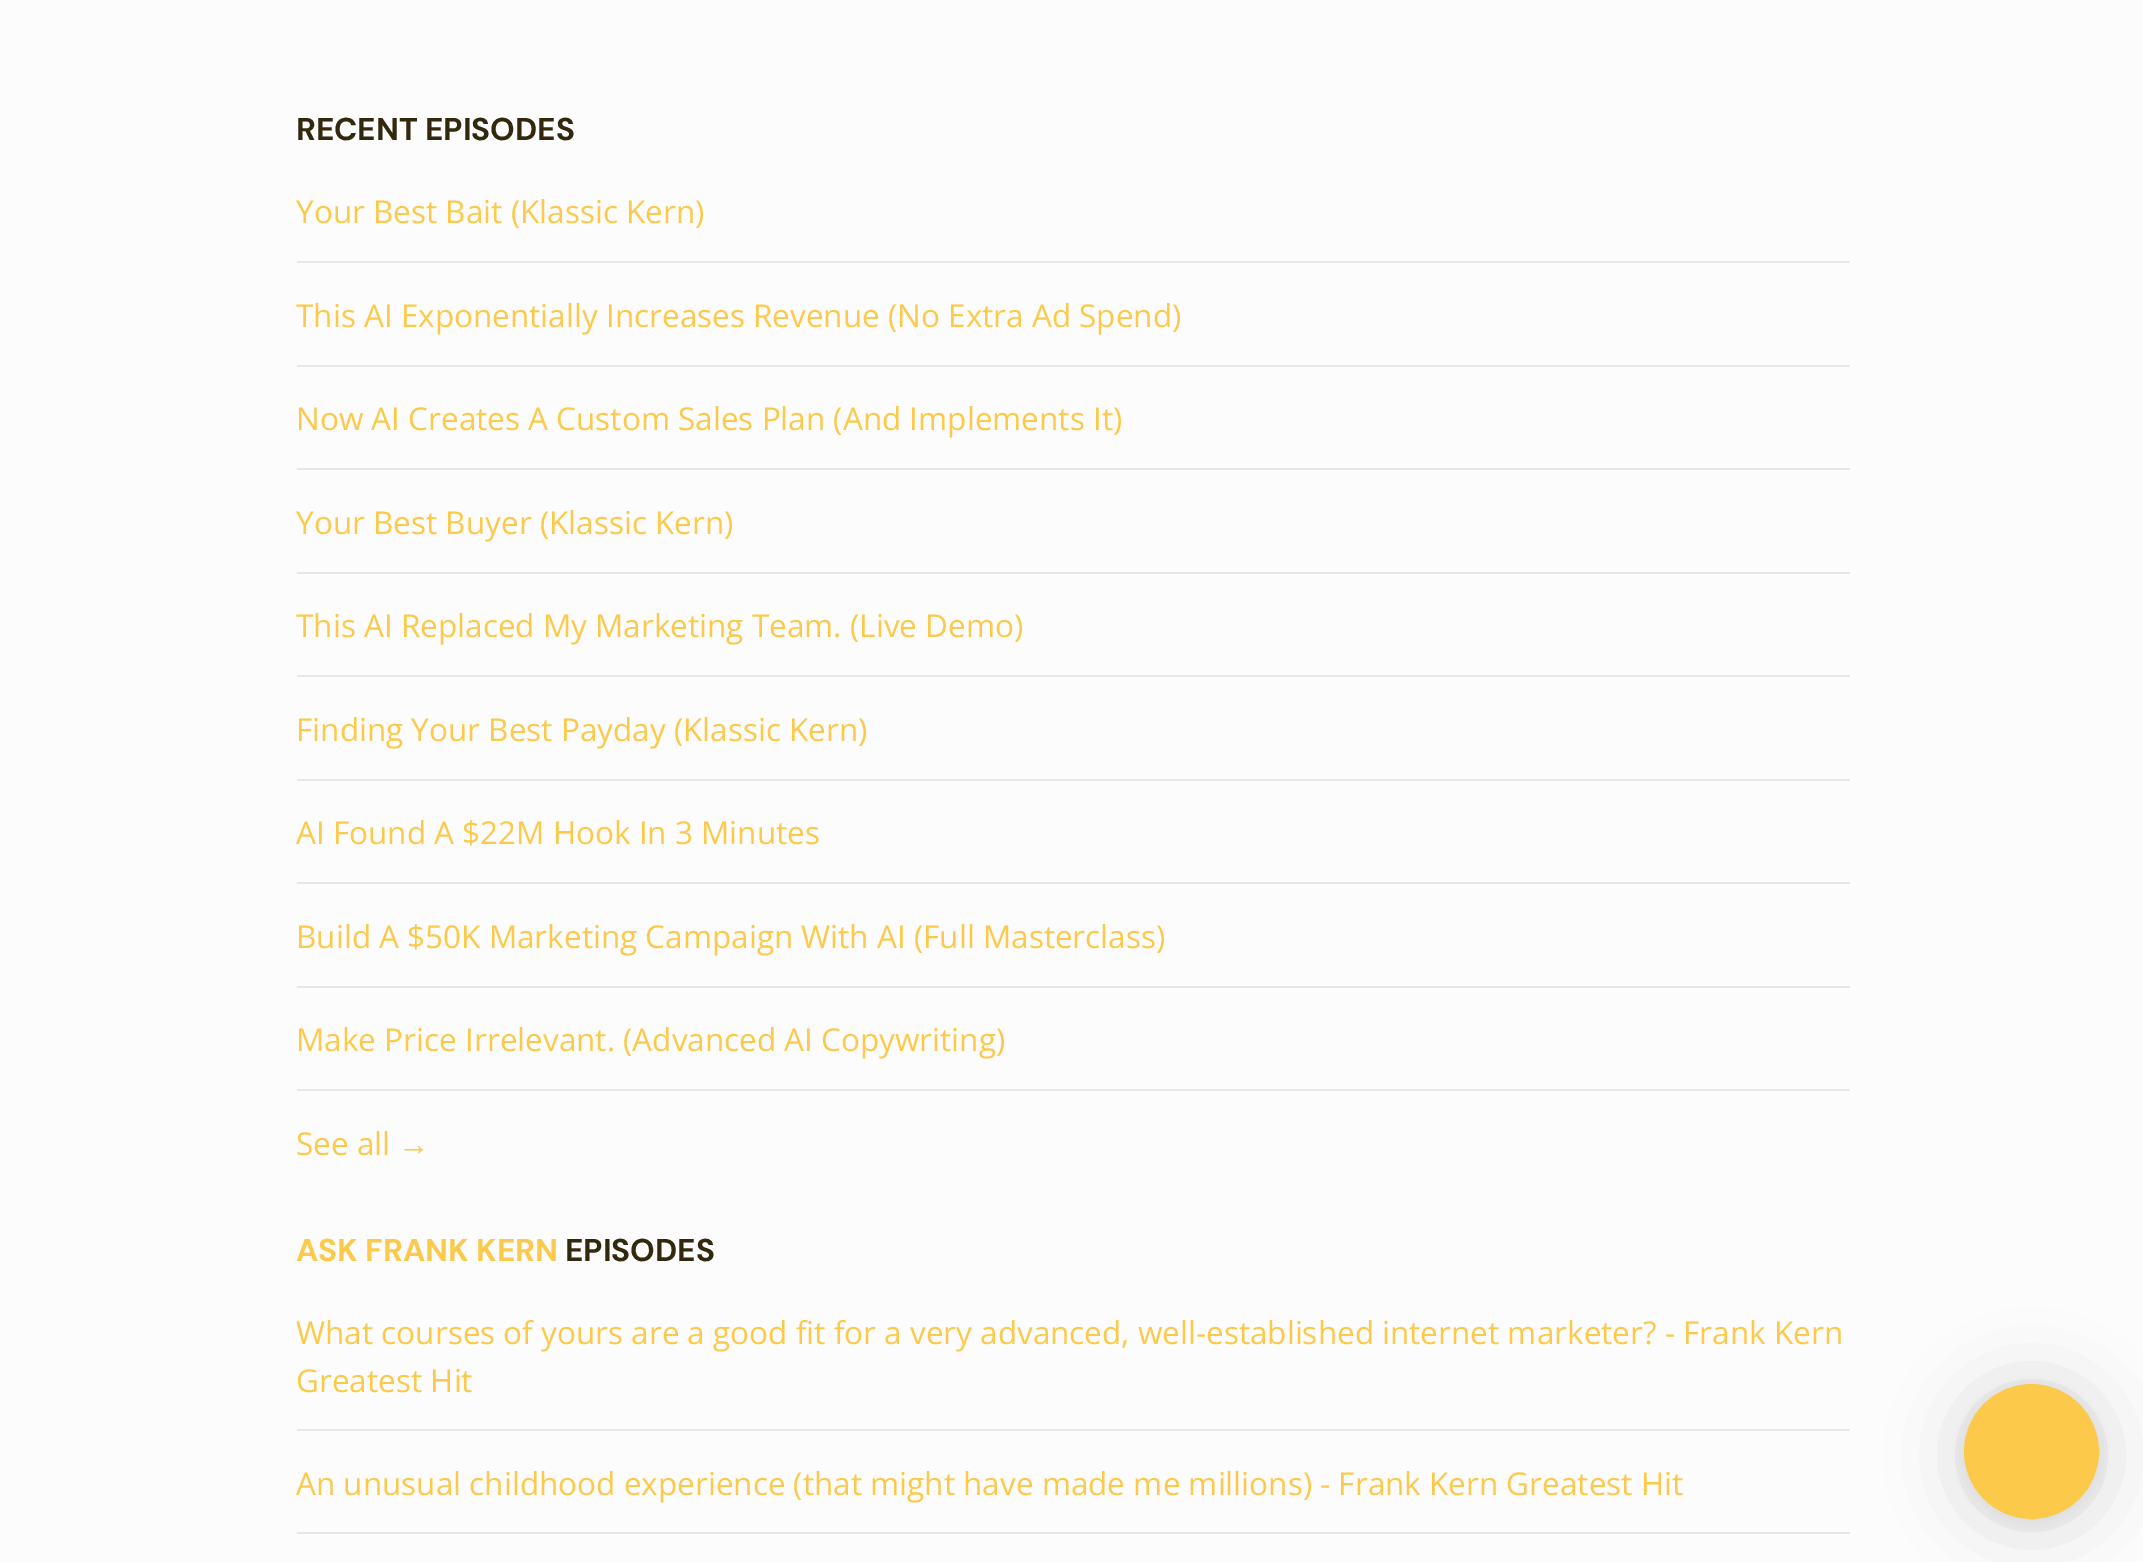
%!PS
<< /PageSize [2143 1562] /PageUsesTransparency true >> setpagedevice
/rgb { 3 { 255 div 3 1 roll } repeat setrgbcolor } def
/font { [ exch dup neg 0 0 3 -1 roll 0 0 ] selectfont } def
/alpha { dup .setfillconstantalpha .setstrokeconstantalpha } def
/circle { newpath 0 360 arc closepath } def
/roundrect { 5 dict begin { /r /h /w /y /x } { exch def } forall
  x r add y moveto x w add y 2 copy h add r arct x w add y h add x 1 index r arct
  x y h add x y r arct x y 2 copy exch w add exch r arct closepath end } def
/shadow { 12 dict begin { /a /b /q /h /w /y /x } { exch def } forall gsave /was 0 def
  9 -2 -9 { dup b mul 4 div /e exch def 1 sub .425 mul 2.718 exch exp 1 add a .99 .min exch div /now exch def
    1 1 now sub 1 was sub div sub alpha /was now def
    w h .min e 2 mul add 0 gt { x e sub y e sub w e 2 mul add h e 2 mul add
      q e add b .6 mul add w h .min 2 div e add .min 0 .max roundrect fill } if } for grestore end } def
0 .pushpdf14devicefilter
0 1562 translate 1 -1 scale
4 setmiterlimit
252 252 252 rgb
0 0 2143 1562 rectfill
[
  [297 261 1553 2 232 231 228]
  [297 365 1553 2 232 231 228]
  [297 468 1553 2 232 231 228]
  [297 572 1553 2 232 231 228]
  [297 675 1553 2 232 231 228]
  [297 779 1553 2 232 231 228]
  [297 882 1553 2 232 231 228]
  [297 986 1553 2 232 231 228]
  [297 1089 1553 2 232 231 228]
  [297 1429 1553 2 232 231 228]
  [297 1532 1553 2 232 231 228]
] { aload pop rgb rectfill } forall
0 0 0 rgb
1964 1388 135 135 67.5 36 0.16 shadow
1964 1386 135 135 67.5 7 0.06 shadow
252 201 74 rgb
2031.5 1451.5 66.5 circle gsave fill grestore
2 setlinewidth
stroke
/DMSans-Bold 31.5 font
50 40 14 rgb
296 140 moveto (RECENT EPISODES) show
/OpenSans-Regular 31.5 font
252 201 74 rgb
[
  [(Your Best Bait \(Klassic Kern\)) 296 223]
  [(This AI Exponentially Increases Revenue \(No Extra Ad Spend\)) 296 327]
  [(Now AI Creates A Custom Sales Plan \(And Implements It\)) 296 430]
  [(Your Best Buyer \(Klassic Kern\)) 296 534]
  [(This AI Replaced My Marketing Team. \(Live Demo\)) 296 637]
  [(Finding Your Best Payday \(Klassic Kern\)) 296 741]
  [(AI Found A $22M Hook In 3 Minutes) 296 844]
  [(Build A $50K Marketing Campaign With AI \(Full Masterclass\)) 296 948]
  [(Make Price Irrelevant. \(Advanced AI Copywriting\)) 296 1051]
  [(See all) 296 1155]
] { aload pop moveto show } forall
/LiberationSerif-Regular 31.5 font
398 1155 moveto (→) show
/DMSans-Bold 31.5 font
296 1261 moveto (ASK FRANK KERN) show
50 40 14 rgb
565 1261 moveto (EPISODES) show
/OpenSans-Regular 31.5 font
252 201 74 rgb
[
  [(What courses of yours are a good fit for a very advanced, well-established internet marketer? - Frank Kern) 296 1344]
  [(Greatest Hit) 296 1392]
  [(An unusual childhood experience \(that might have made me millions\) - Frank Kern Greatest Hit) 296 1495]
] { aload pop moveto show } forall
.poppdf14devicefilter showpage
